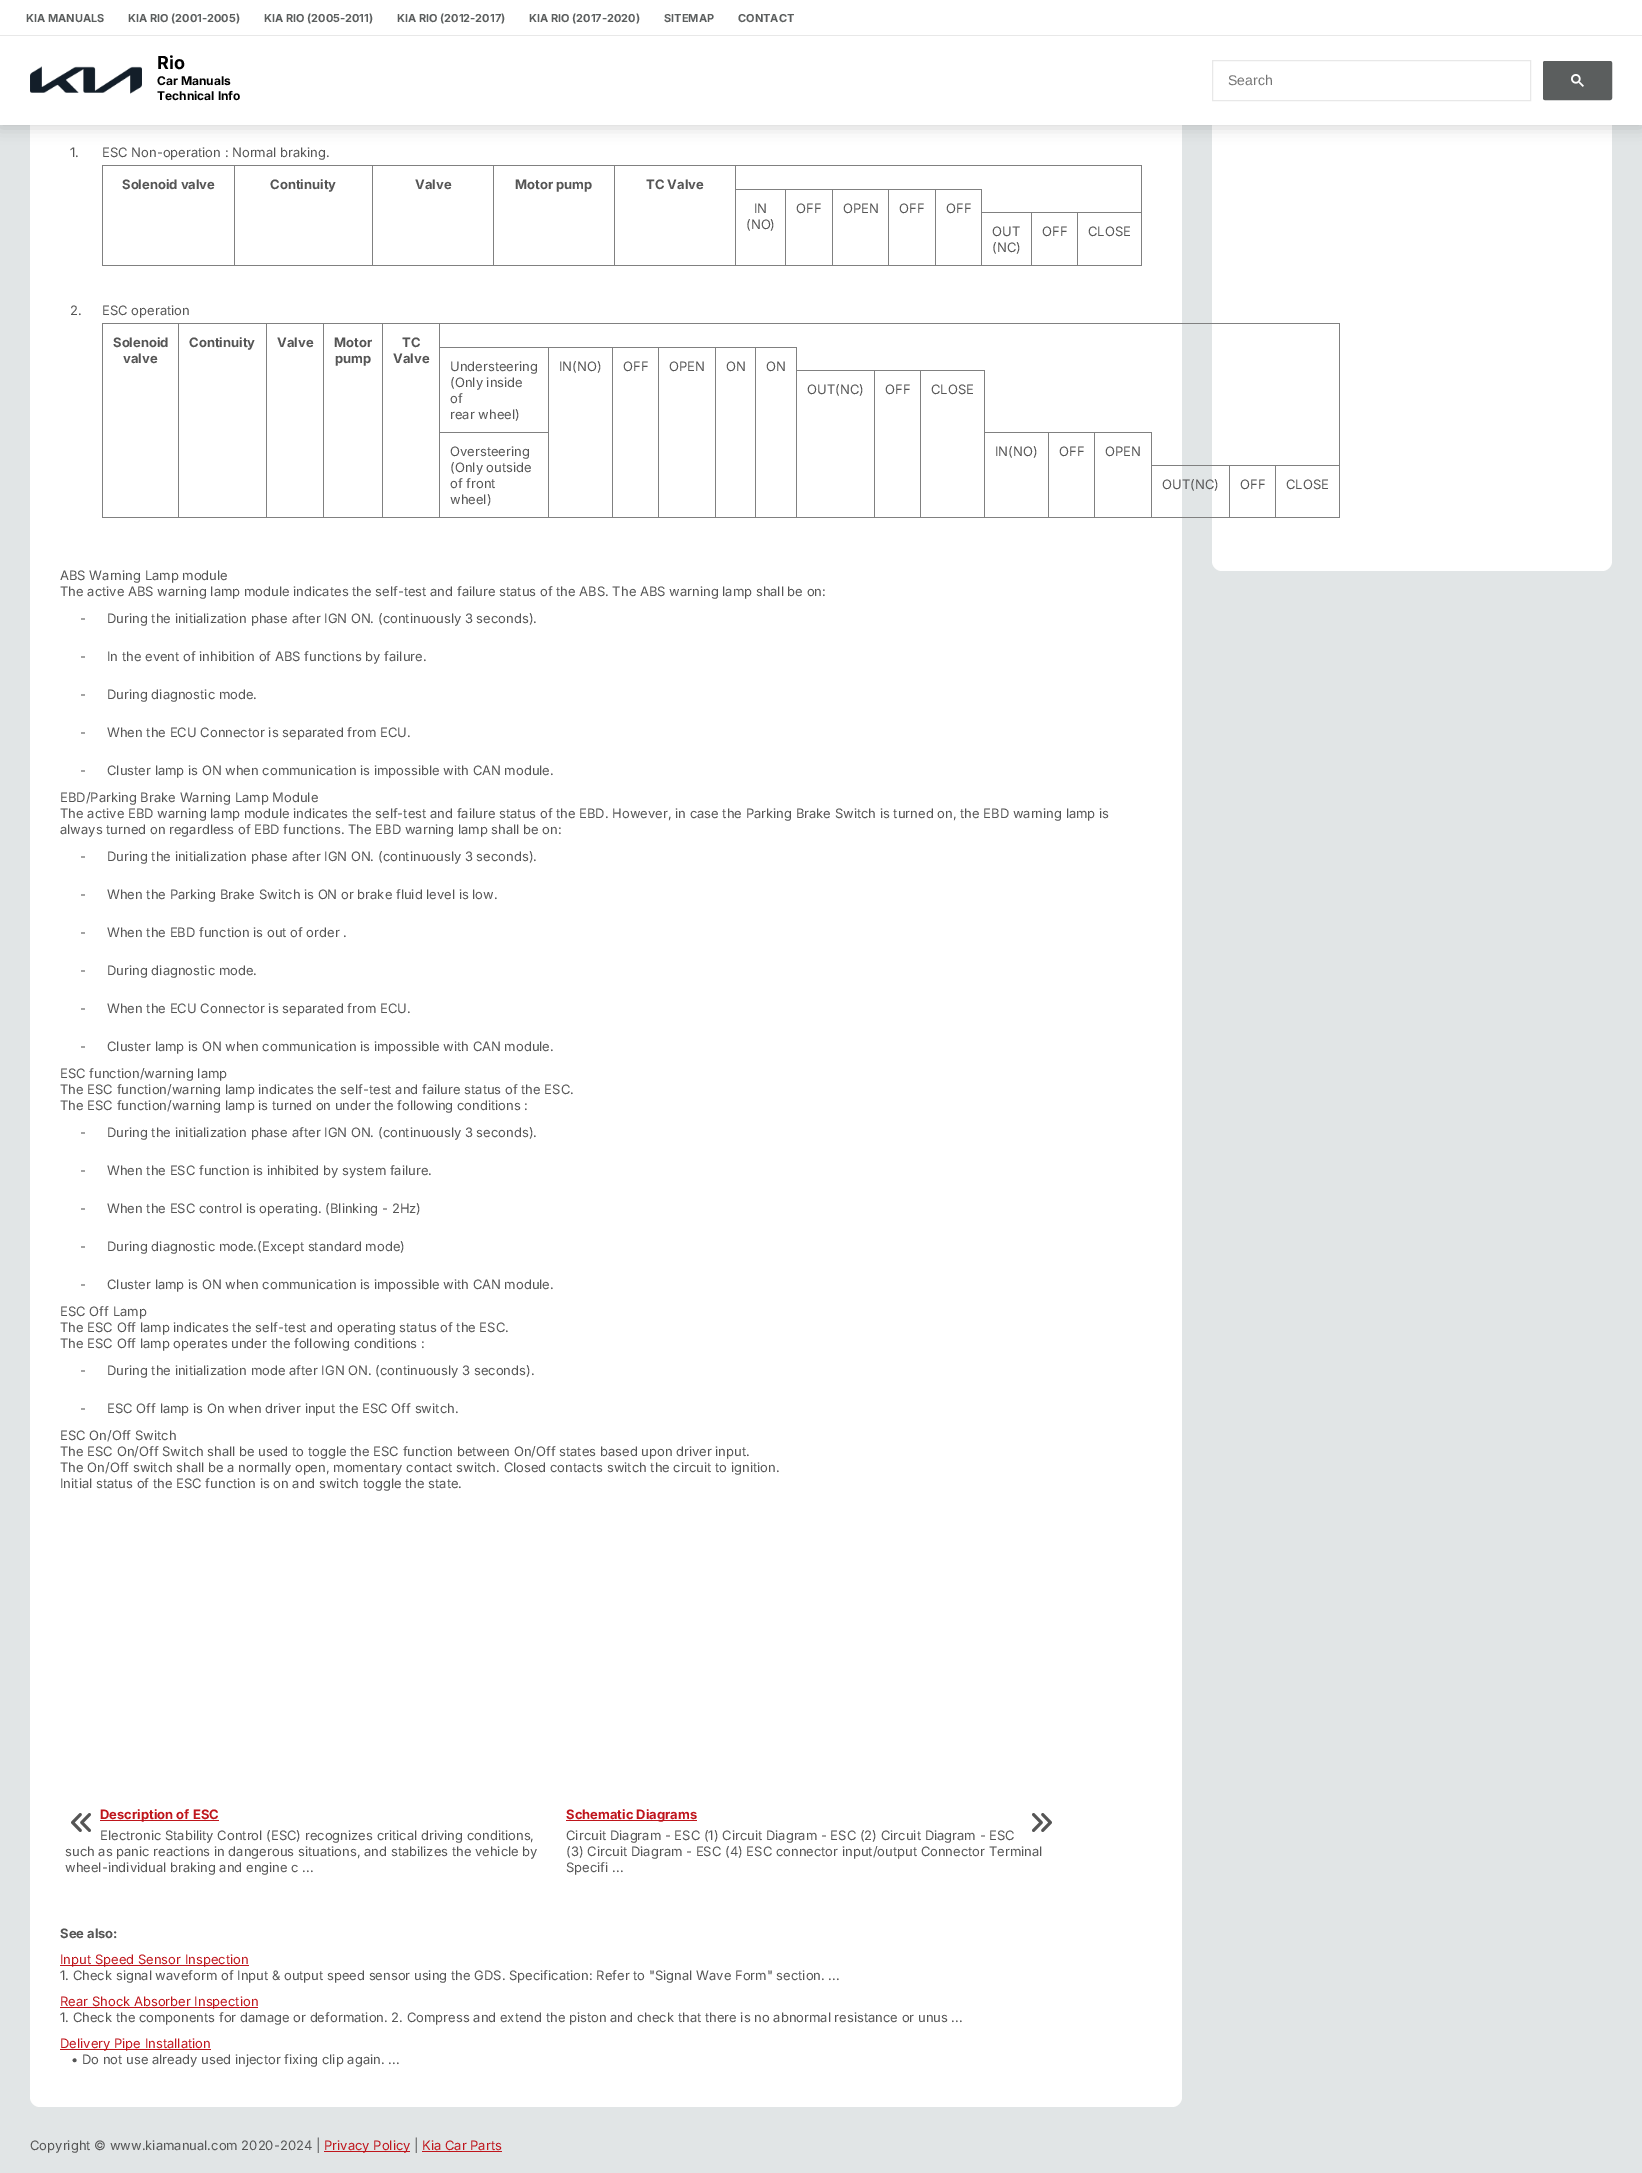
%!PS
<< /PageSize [1642 2173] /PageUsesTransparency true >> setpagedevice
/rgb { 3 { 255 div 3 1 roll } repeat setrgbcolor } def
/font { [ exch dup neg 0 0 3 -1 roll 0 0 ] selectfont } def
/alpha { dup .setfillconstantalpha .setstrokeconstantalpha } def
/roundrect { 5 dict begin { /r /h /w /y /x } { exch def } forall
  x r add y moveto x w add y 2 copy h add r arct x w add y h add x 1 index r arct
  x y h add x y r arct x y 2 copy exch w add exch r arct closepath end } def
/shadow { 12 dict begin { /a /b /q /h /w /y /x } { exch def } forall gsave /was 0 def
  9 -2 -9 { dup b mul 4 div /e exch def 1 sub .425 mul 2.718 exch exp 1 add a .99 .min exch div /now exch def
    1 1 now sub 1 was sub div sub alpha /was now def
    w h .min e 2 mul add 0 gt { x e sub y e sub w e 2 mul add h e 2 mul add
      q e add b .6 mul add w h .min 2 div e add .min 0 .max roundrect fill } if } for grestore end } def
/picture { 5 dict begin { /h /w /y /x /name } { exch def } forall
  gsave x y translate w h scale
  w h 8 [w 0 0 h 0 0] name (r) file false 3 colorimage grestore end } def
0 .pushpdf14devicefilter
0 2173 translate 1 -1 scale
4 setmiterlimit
225 229 230 rgb
0 0 1642 2173 rectfill
255 255 255 rgb
30 -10 1152 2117 10 roundrect fill
1212 -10 400 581 10 roundrect fill
0 0 0 rgb
0 3 1642 125 0 7.5 0.15 shadow
255 255 255 rgb
0 0 1642 125 rectfill
232 232 232 rgb
0 35 1642 1 rectfill
(img/1.rgb) 30 66 112 28 picture
1212.5 60.5 318 40 rectstroke
91 94 94 rgb
1543.5 61.5 68 38 1.5 roundrect gsave fill grestore
stroke
(img/2.rgb) 1571 74 13 13 picture
[
  [102 165 1040 1 128 128 128]
  [1141 165 1 101 128 128 128]
  [102 265 1040 1 128 128 128]
  [102 165 1 101 128 128 128]
  [234 165 1 101 128 128 128]
  [372 165 1 101 128 128 128]
  [493 165 1 101 128 128 128]
  [935 189 47 1 128 128 128]
  [935 189 1 77 128 128 128]
  [888 189 48 1 128 128 128]
  [888 189 1 77 128 128 128]
  [832 189 57 1 128 128 128]
  [832 189 1 77 128 128 128]
  [785 189 48 1 128 128 128]
  [785 189 1 77 128 128 128]
  [735 189 51 1 128 128 128]
  [735 165 1 101 128 128 128]
  [614 165 1 101 128 128 128]
  [1077 212 65 1 128 128 128]
  [1077 212 1 54 128 128 128]
  [1031 212 47 1 128 128 128]
  [1031 212 1 54 128 128 128]
  [981 212 51 1 128 128 128]
  [981 189 1 77 128 128 128]
  [102 323 1238 1 128 128 128]
  [1339 323 1 195 128 128 128]
  [102 517 1238 1 128 128 128]
  [102 323 1 195 128 128 128]
  [178 323 1 195 128 128 128]
  [266 323 1 195 128 128 128]
  [323 323 1 195 128 128 128]
  [755 347 42 1 128 128 128]
  [755 347 1 171 128 128 128]
  [715 347 41 1 128 128 128]
  [715 347 1 171 128 128 128]
  [658 347 58 1 128 128 128]
  [658 347 1 171 128 128 128]
  [612 347 47 1 128 128 128]
  [612 347 1 171 128 128 128]
  [548 347 65 1 128 128 128]
  [439 432 110 1 128 128 128]
  [548 347 1 171 128 128 128]
  [439 347 110 1 128 128 128]
  [439 323 1 195 128 128 128]
  [382 323 1 195 128 128 128]
  [920 370 65 1 128 128 128]
  [920 370 1 148 128 128 128]
  [874 370 47 1 128 128 128]
  [874 370 1 148 128 128 128]
  [796 370 79 1 128 128 128]
  [796 347 1 171 128 128 128]
  [1094 432 58 1 128 128 128]
  [1094 432 1 86 128 128 128]
  [1048 432 47 1 128 128 128]
  [1048 432 1 86 128 128 128]
  [984 432 65 1 128 128 128]
  [984 370 1 148 128 128 128]
  [1275 465 65 1 128 128 128]
  [1275 465 1 53 128 128 128]
  [1229 465 47 1 128 128 128]
  [1229 465 1 53 128 128 128]
  [1151 465 79 1 128 128 128]
  [1151 432 1 86 128 128 128]
] { aload pop rgb rectfill } forall
(img/3.rgb) 71 1813 20 19 picture
191 21 28 rgb
100 1820 119 1 rectfill
566 1820 131 1 rectfill
(img/4.rgb) 1032 1813 20 19 picture
[
  [60 1965 189 1 191 21 28]
  [60 2007 198 1 191 21 28]
  [60 2049 151 1 191 21 28]
  [324 2151 86 1 191 21 28]
  [422 2151 80 1 191 21 28]
] { aload pop rgb rectfill } forall
/Inter-Bold 11 font
91 94 94 rgb
[
  [(KIA MANUALS) 26 22]
  [(KIA RIO \(2001-2005\)) 128 22]
  [(KIA RIO \(2005-2011\)) 264 22]
  [(KIA RIO \(2012-2017\)) 397 22]
  [(KIA RIO \(2017-2020\)) 529 22]
  [(SITEMAP) 664 22]
  [(CONTACT) 738 22]
] { aload pop moveto show } forall
/Inter-Bold 18 font
0 0 0 rgb
157 69 moveto (Rio) show
/Inter-Bold 12 font
157 85 moveto (Car Manuals) show
157 100 moveto (Technical Info) show
/LiberationSans-Regular 14 font
117 117 117 rgb
1228 85 moveto (Search) show
/Inter-Regular 13 font
85 85 85 rgb
70 157 moveto (1.) show
102 157 moveto (ESC Non-operation : Normal braking.) show
/Inter-Bold 13 font
[
  [(Solenoid valve) 122 189]
  [(Continuity) 270 189]
  [(Valve) 415 189]
  [(Motor pump) 515 189]
  [(TC Valve) 646 189]
] { aload pop moveto show } forall
/Inter-Regular 13 font
[
  [(IN) 754 213]
  [(\(NO\)) 746 229]
  [(OFF) 796 213]
  [(OPEN) 843 213]
  [(OFF) 899 213]
  [(OFF) 946 213]
  [(OUT) 992 236]
  [(\(NC\)) 992 252]
  [(OFF) 1042 236]
  [(CLOSE) 1088 236]
  [(2.) 70 315]
  [(ESC operation) 102 315]
] { aload pop moveto show } forall
/Inter-Bold 13 font
[
  [(Solenoid) 113 347]
  [(valve) 123 363]
  [(Continuity) 189 347]
  [(Valve) 277 347]
  [(Motor) 334 347]
  [(pump) 335 363]
  [(TC) 402 347]
  [(Valve) 393 363]
] { aload pop moveto show } forall
/Inter-Regular 13 font
[
  [(Understeering) 450 371]
  [(\(Only inside) 450 387]
  [(of) 450 403]
  [(rear wheel\)) 450 419]
  [(IN\(NO\)) 559 371]
  [(OFF) 623 371]
  [(OPEN) 669 371]
  [(ON) 726 371]
  [(ON) 766 371]
  [(OUT\(NC\)) 807 394]
  [(OFF) 885 394]
  [(CLOSE) 931 394]
  [(Oversteering) 450 456]
  [(\(Only outside) 450 472]
  [(of front) 450 488]
  [(wheel\)) 450 504]
  [(IN\(NO\)) 995 456]
  [(OFF) 1059 456]
  [(OPEN) 1105 456]
  [(OUT\(NC\)) 1162 489]
  [(OFF) 1240 489]
  [(CLOSE) 1286 489]
  [(ABS Warning Lamp module) 60 580]
  [(The active ABS warning lamp module indicates the self-test and failure status of the ABS. The ABS warning lamp shall be on:) 60 596]
  [(-) 80 623]
  [(During the initialization phase after IGN ON. \(continuously 3 seconds\).) 107 623]
  [(-) 80 661]
  [(In the event of inhibition of ABS functions by failure.) 107 661]
  [(-) 80 699]
  [(During diagnostic mode.) 107 699]
  [(-) 80 737]
  [(When the ECU Connector is separated from ECU.) 107 737]
  [(-) 80 775]
  [(Cluster lamp is ON when communication is impossible with CAN module.) 107 775]
  [(EBD/Parking Brake Warning Lamp Module) 60 802]
  [(The active EBD warning lamp module indicates the self-test and failure status of the EBD. However, in case the Parking Brake Switch is turned on, the EBD warning lamp is) 60 818]
  [(always turned on regardless of EBD functions. The EBD warning lamp shall be on:) 60 834]
  [(-) 80 861]
  [(During the initialization phase after IGN ON. \(continuously 3 seconds\).) 107 861]
  [(-) 80 899]
  [(When the Parking Brake Switch is ON or brake fluid level is low.) 107 899]
  [(-) 80 937]
  [(When the EBD function is out of order .) 107 937]
  [(-) 80 975]
  [(During diagnostic mode.) 107 975]
  [(-) 80 1013]
  [(When the ECU Connector is separated from ECU.) 107 1013]
  [(-) 80 1051]
  [(Cluster lamp is ON when communication is impossible with CAN module.) 107 1051]
  [(ESC function/warning lamp) 60 1078]
  [(The ESC function/warning lamp indicates the self-test and failure status of the ESC.) 60 1094]
  [(The ESC function/warning lamp is turned on under the following conditions :) 60 1110]
  [(-) 80 1137]
  [(During the initialization phase after IGN ON. \(continuously 3 seconds\).) 107 1137]
  [(-) 80 1175]
  [(When the ESC function is inhibited by system failure.) 107 1175]
  [(-) 80 1213]
  [(When the ESC control is operating. \(Blinking - 2Hz\)) 107 1213]
  [(-) 80 1251]
  [(During diagnostic mode.\(Except standard mode\)) 107 1251]
  [(-) 80 1289]
  [(Cluster lamp is ON when communication is impossible with CAN module.) 107 1289]
  [(ESC Off Lamp) 60 1316]
  [(The ESC Off lamp indicates the self-test and operating status of the ESC.) 60 1332]
  [(The ESC Off lamp operates under the following conditions :) 60 1348]
  [(-) 80 1375]
  [(During the initialization mode after IGN ON. \(continuously 3 seconds\).) 107 1375]
  [(-) 80 1413]
  [(ESC Off lamp is On when driver input the ESC Off switch.) 107 1413]
  [(ESC On/Off Switch) 60 1440]
  [(The ESC On/Off Switch shall be used to toggle the ESC function between On/Off states based upon driver input.) 60 1456]
  [(The On/Off switch shall be a normally open, momentary contact switch. Closed contacts switch the circuit to ignition.) 60 1472]
  [(Initial status of the ESC function is on and switch toggle the state.) 60 1488]
] { aload pop moveto show } forall
/Inter-Bold 13 font
191 21 28 rgb
100 1819 moveto (Description of ESC) show
/Inter-Regular 13 font
85 85 85 rgb
[
  [(Electronic Stability Control \(ESC\) recognizes critical driving conditions,) 100 1840]
  [(such as panic reactions in dangerous situations, and stabilizes the vehicle by) 65 1856]
  [(wheel-individual braking and engine c ...) 65 1872]
] { aload pop moveto show } forall
/Inter-Bold 13 font
191 21 28 rgb
566 1819 moveto (Schematic Diagrams) show
/Inter-Regular 13 font
85 85 85 rgb
[
  [(Circuit Diagram - ESC \(1\) Circuit Diagram - ESC \(2\) Circuit Diagram - ESC) 566 1840]
  [(\(3\) Circuit Diagram - ESC \(4\) ESC connector input/output Connector Terminal) 566 1856]
  [(Specifi ...) 566 1872]
] { aload pop moveto show } forall
/Inter-Bold 13 font
60 1938 moveto (See also:) show
/Inter-Regular 13 font
191 21 28 rgb
60 1964 moveto (Input Speed Sensor Inspection) show
85 85 85 rgb
60 1980 moveto (1. Check signal waveform of Input & output speed sensor using the GDS. Specification: Refer to "Signal Wave Form" section. ...) show
191 21 28 rgb
60 2006 moveto (Rear Shock Absorber Inspection) show
85 85 85 rgb
60 2022 moveto (1. Check the components for damage or deformation. 2. Compress and extend the piston and check that there is no abnormal resistance or unus ...) show
191 21 28 rgb
60 2048 moveto (Delivery Pipe Installation) show
85 85 85 rgb
71 2064 moveto (• Do not use already used injector fixing clip again. ...) show
30 2150 moveto (Copyright © www.kiamanual.com 2020-2024 |) show
191 21 28 rgb
324 2150 moveto (Privacy Policy) show
85 85 85 rgb
414 2150 moveto (|) show
191 21 28 rgb
422 2150 moveto (Kia Car Parts) show
.poppdf14devicefilter showpage
